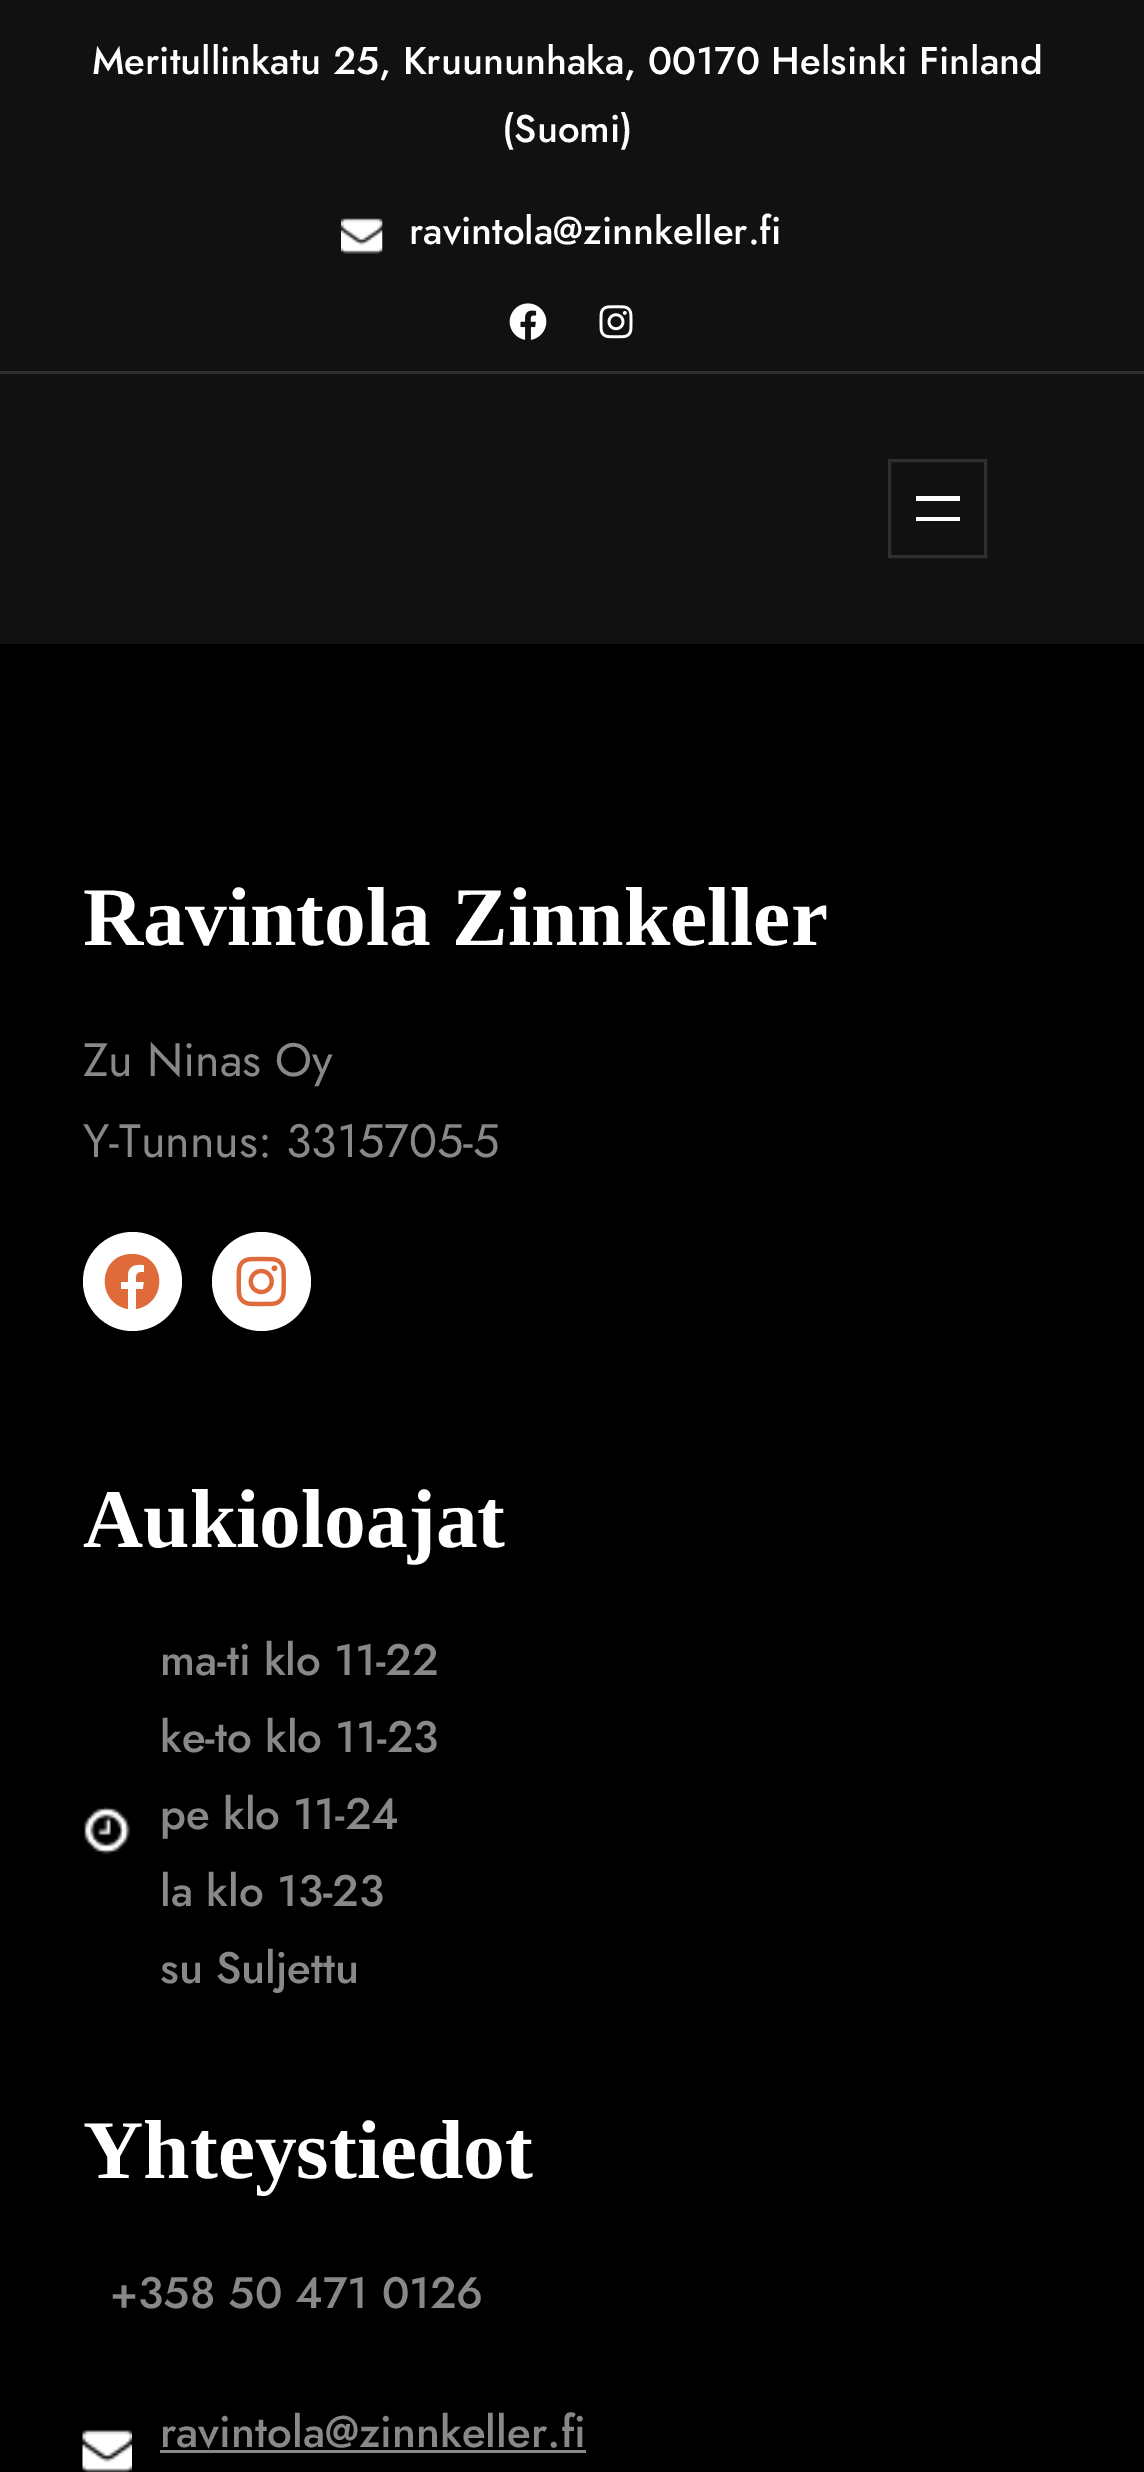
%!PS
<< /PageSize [1144 2472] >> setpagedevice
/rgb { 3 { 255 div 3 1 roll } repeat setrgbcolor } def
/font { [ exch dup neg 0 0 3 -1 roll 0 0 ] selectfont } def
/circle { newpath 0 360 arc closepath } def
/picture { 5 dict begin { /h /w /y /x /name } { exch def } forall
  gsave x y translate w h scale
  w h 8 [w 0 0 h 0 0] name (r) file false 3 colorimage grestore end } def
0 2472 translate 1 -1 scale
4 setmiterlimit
17 17 17 rgb
0 0 1144 2472 rectfill
47 47 48 rgb
0 371 1144 3 rectfill
(img/1.rgb) 341 218 42 36 picture
(img/2.rgb) 509 303 38 37 picture
(img/3.rgb) 599 305 34 34 picture
47 47 47 rgb
3 setlinewidth
889.5 460.5 96 96 rectstroke
[
  [916 496 44 5 255 255 255]
  [916 517 44 4 255 255 255]
  [0 644 1144 1828 0 0 0]
] { aload pop rgb rectfill } forall
255 255 255 rgb
132.5 1281.5 49.5 circle fill
223 107 58 rgb
132 1254 moveto 98 1254 95 1303 128 1309 curveto 128 1289 lineto 121 1289 lineto 121 1282 lineto 128 1282 lineto 128 1273 lineto 129 1265 137 1264 144 1265 curveto 144 1272 lineto 136 1272 136 1274 136 1282 curveto 144 1282 lineto 143 1289 lineto 136 1289 lineto 136 1309 lineto 169 1303 166 1254 132 1254 curveto closepath fill
255 255 255 rgb
261.5 1281.5 49.5 circle fill
(img/4.rgb) 236 1256 50 51 picture
(img/5.rgb) 84 1807 47 48 picture
(img/6.rgb) 82 2430 50 42 picture
136 136 136 rgb
160 2450 426 3 rectfill
/Jost-Medium 38.5 font
255 255 255 rgb
[
  [(Meritullinkatu 25, Kruununhaka, 00170 Helsinki Finland) 92 74]
  [(\(Suomi\)) 502 142]
  [(ravintola@zinnkeller.fi) 409 244]
] { aload pop moveto show } forall
/LiberationSerif-Bold 83.5 font
83 945 moveto (Ravintola Zinnkeller) show
/Jost-Regular 46.75 font
136 136 136 rgb
83 1076 moveto (Zu Ninas Oy) show
83 1157 moveto (Y-Tunnus: 3315705-5) show
/LiberationSerif-Bold 83.5 font
255 255 255 rgb
83 1547 moveto (Aukioloajat) show
/Jost-Medium 44 font
136 136 136 rgb
[
  [(ma-ti klo 11-22) 160 1675]
  [(ke-to klo 11-23) 160 1752]
  [(pe klo 11-24) 160 1829]
  [(la klo 13-23) 160 1906]
  [(su Suljettu) 160 1983]
] { aload pop moveto show } forall
/LiberationSerif-Bold 83.5 font
255 255 255 rgb
83 2178 moveto (Yhteystiedot) show
/Jost-Medium 44 font
136 136 136 rgb
110 2308 moveto (+358 50 471 0126) show
160 2447 moveto (ravintola@zinnkeller.fi) show
showpage
